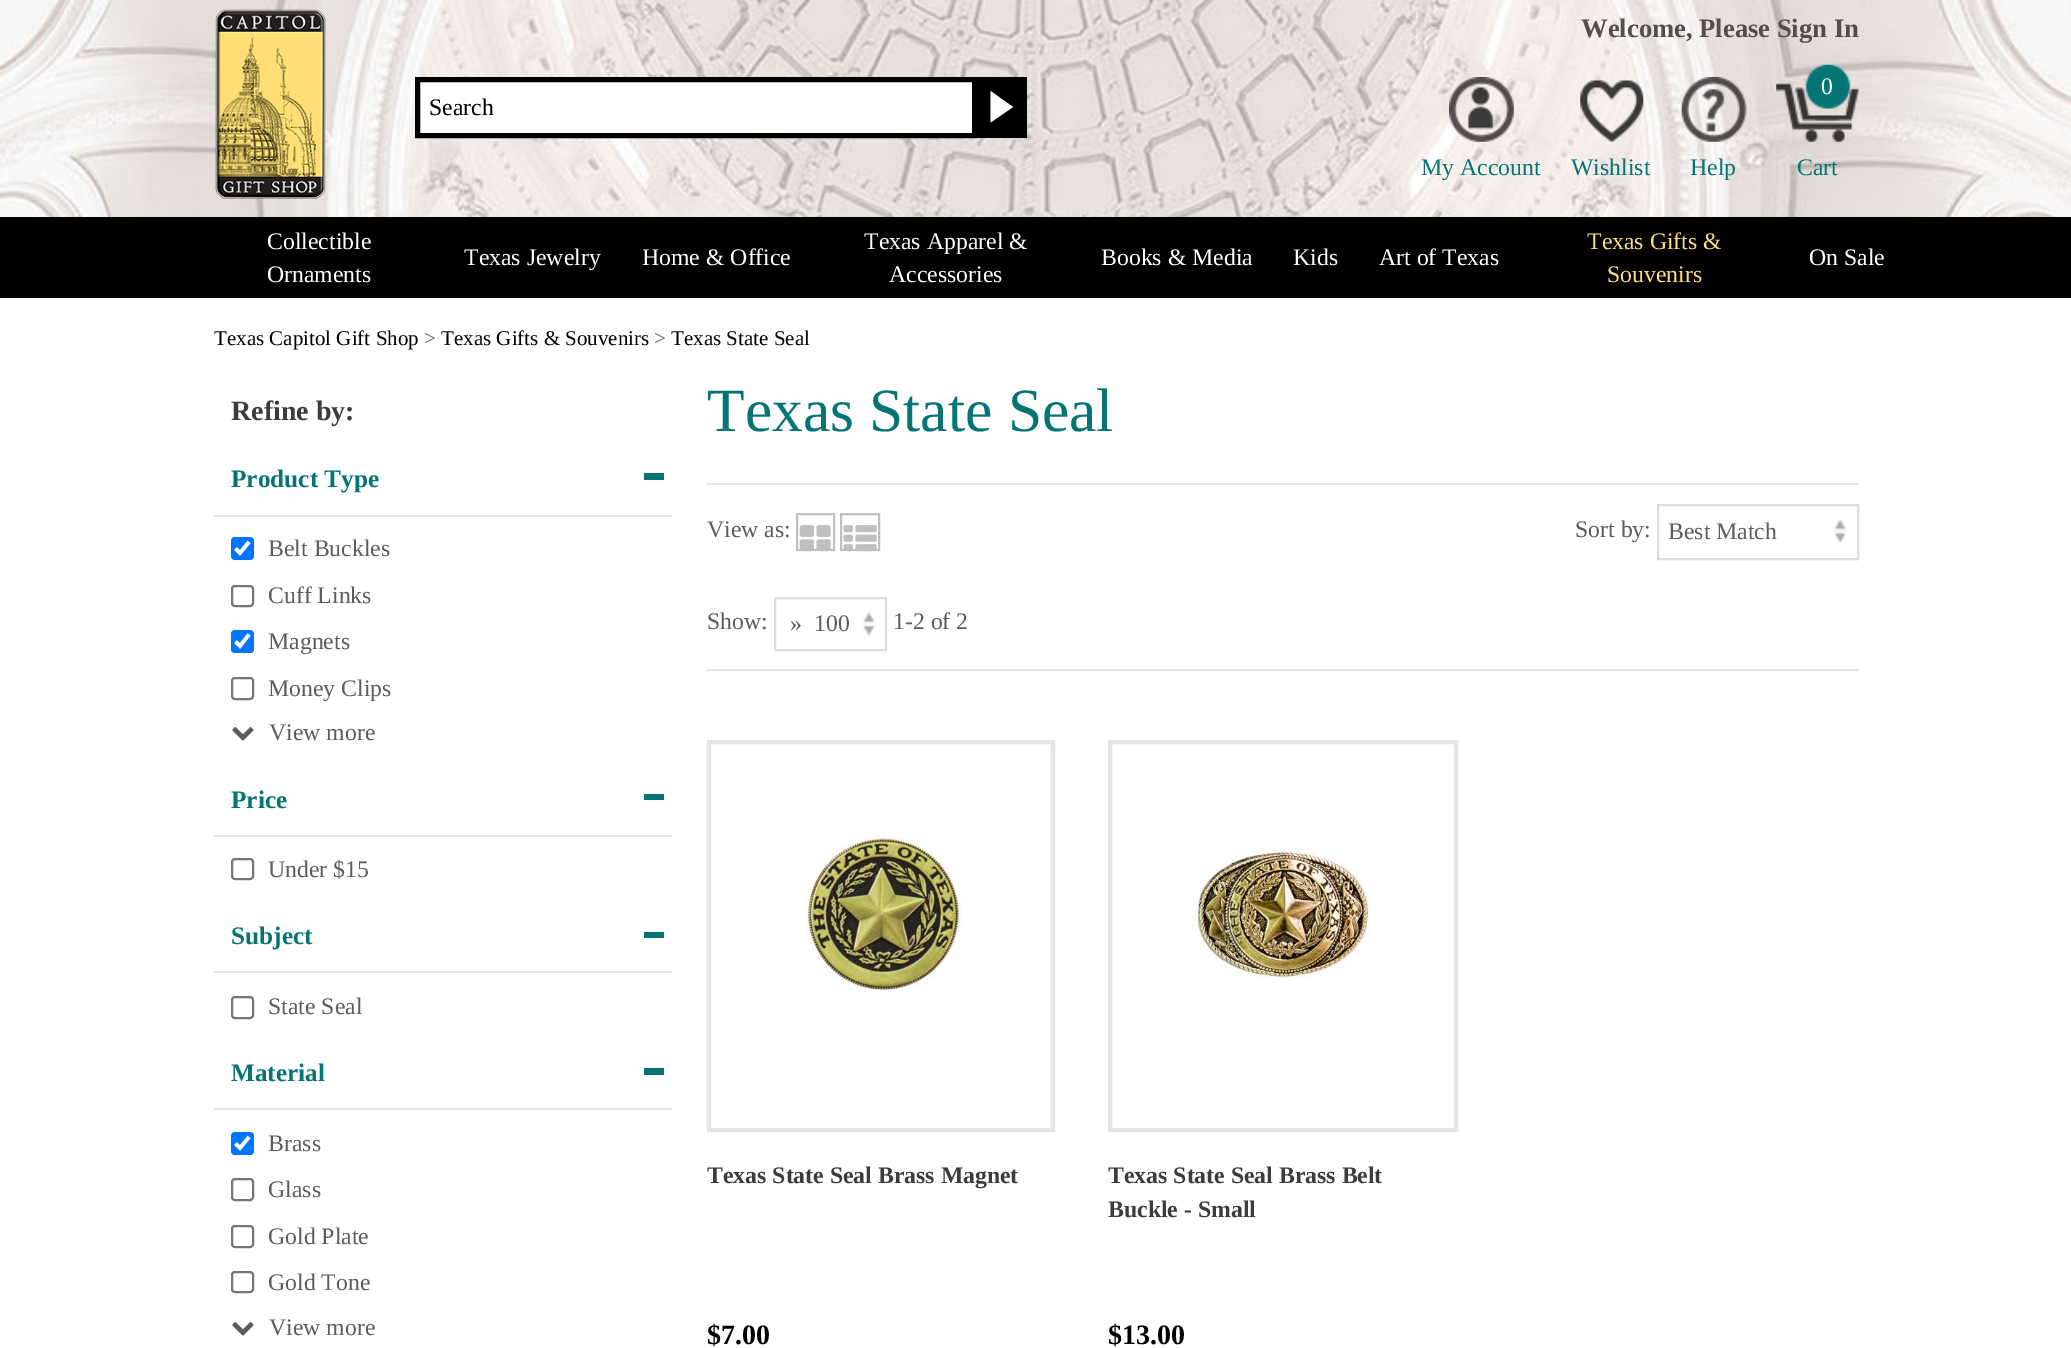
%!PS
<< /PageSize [2071 1348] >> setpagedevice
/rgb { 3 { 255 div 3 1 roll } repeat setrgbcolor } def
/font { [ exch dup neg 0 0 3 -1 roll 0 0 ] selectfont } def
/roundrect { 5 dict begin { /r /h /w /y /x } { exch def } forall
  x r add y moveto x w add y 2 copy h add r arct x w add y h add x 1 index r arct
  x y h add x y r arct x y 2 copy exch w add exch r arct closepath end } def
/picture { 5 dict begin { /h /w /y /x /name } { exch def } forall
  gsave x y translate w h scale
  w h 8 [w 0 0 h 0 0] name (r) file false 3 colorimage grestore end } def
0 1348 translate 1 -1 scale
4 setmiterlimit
255 255 255 rgb
0 0 2071 1348 rectfill
(img/1.rgb) 0 0 2071 217 picture
(img/2.rgb) 215 9 111 190 picture
417.5 79.5 moveto 974.5 79.5 lineto 974.5 135.5 lineto 417.5 135.5 lineto closepath gsave fill grestore
0 0 0 rgb
5 setlinewidth
stroke
977 77 50 61 rectfill
255 255 255 rgb
990.5 122.5 moveto 990.5 91 lineto 1013 107 lineto closepath fill
(img/3.rgb) 1449 77 65 65 picture
(img/4.rgb) 1580 80 64 62 picture
(img/5.rgb) 1681 77 66 65 picture
(img/6.rgb) 1776 64 83 78 picture
[
  [0 217 2071 81 0 0 0]
  [214 515 458 2 228 228 228]
  [644 473 20 7 4 116 116]
] { aload pop rgb rectfill } forall
0 117 255 rgb
231 537 23 23 4 roundrect fill
255 255 255 rgb
3.6 setlinewidth
235.5 548.5 moveto 240 553 lineto 249 542 lineto stroke
118 118 118 rgb
2 setlinewidth
232 586 21 20 3 roundrect stroke
0 117 255 rgb
231 630 23 23 4 roundrect fill
255 255 255 rgb
3.6 setlinewidth
235.5 641.5 moveto 240 646 lineto 249 634.5 lineto stroke
118 118 118 rgb
2 setlinewidth
232 678 21 21 3 roundrect stroke
(img/7.rgb) 232 727 22 14 picture
228 228 228 rgb
214 835 458 2 rectfill
4 116 116 rgb
644 794 20 6 rectfill
118 118 118 rgb
232 859 21 20 3 roundrect stroke
228 228 228 rgb
214 971 458 2 rectfill
4 116 116 rgb
644 932 20 6 rectfill
118 118 118 rgb
232 997 21 21 3 roundrect stroke
228 228 228 rgb
214 1108 458 2 rectfill
4 116 116 rgb
644 1068 20 7 rectfill
0 117 255 rgb
231 1132 23 23 4 roundrect fill
255 255 255 rgb
3.6 setlinewidth
235.5 1143.5 moveto 240 1148 lineto 249 1137 lineto stroke
118 118 118 rgb
2 setlinewidth
232 1179 21 21 3 roundrect stroke
232 1226 21 21 3 roundrect stroke
232 1272 21 20 3 roundrect stroke
(img/7.rgb) 232 1322 22 14 picture
228 228 228 rgb
707 483 1152 2 rectfill
707 669 1152 2 rectfill
192 192 192 rgb
797 514 37 36 rectstroke
(img/8.rgb) 799 525 32 27 picture
841 514 38 36 rectstroke
(img/9.rgb) 843 525 34 27 picture
(img/10.rgb) 1834 519 13 24 picture
221 221 221 rgb
1658 505 200 54 rectstroke
(img/11.rgb) 863 612 12 24 picture
775 598 111 52 rectstroke
229 229 229 rgb
4 setlinewidth
709 742 344 388 rectstroke
(img/12.rgb) 806 835 156 156 picture
1110 742 346 388 rectstroke
(img/13.rgb) 1195 851 175 127 picture
/LiberationSerif-Bold 26.6 font
82 78 78 rgb
1581 37 moveto (Welcome, Please Sign In) show
/LiberationSerif-Regular 23.75 font
0 0 0 rgb
429 115 moveto (Search) show
4 116 116 rgb
[
  [(My Account) 1421 175]
  [(Wishlist) 1571 175]
  [(Help) 1690 175]
] { aload pop moveto show } forall
255 255 255 rgb
1821 94 moveto (0) show
4 116 116 rgb
1797 175 moveto (Cart) show
255 255 255 rgb
[
  [(Collectible) 267 249]
  [(Ornaments) 267 282]
  [(Texas Jewelry) 464 265]
  [(Home & Office) 642 265]
  [(Texas Apparel &) 864 249]
  [(Accessories) 889 282]
  [(Books & Media) 1101 265]
  [(Kids) 1293 265]
  [(Art of Texas) 1379 265]
] { aload pop moveto show } forall
255 223 117 rgb
1587 249 moveto (Texas Gifts &) show
1607 282 moveto (Souvenirs) show
255 255 255 rgb
1809 265 moveto (On Sale) show
/LiberationSerif-Regular 21 font
0 0 0 rgb
214 345 moveto (Texas Capitol Gift Shop) show
92 92 92 rgb
424 345 moveto (>) show
0 0 0 rgb
441 345 moveto (Texas Gifts & Souvenirs) show
92 92 92 rgb
654 345 moveto (>) show
0 0 0 rgb
671 345 moveto (Texas State Seal) show
/LiberationSerif-Bold 28 font
60 60 60 rgb
231 420 moveto (Refine by:) show
/LiberationSerif-Bold 25.25 font
4 116 116 rgb
231 487 moveto (Product Type) show
/LiberationSerif-Regular 23.75 font
92 92 92 rgb
[
  [(Belt Buckles) 268 556]
  [(Cuff Links) 268 603]
  [(Magnets) 268 649]
  [(Money Clips) 268 696]
  [(View more) 269 740]
] { aload pop moveto show } forall
/LiberationSerif-Bold 25.25 font
4 116 116 rgb
231 808 moveto (Price) show
/LiberationSerif-Regular 23.75 font
92 92 92 rgb
268 877 moveto (Under $15) show
/LiberationSerif-Bold 25.25 font
4 116 116 rgb
231 944 moveto (Subject) show
/LiberationSerif-Regular 23.75 font
92 92 92 rgb
268 1014 moveto (State Seal) show
/LiberationSerif-Bold 25.25 font
4 116 116 rgb
231 1081 moveto (Material) show
/LiberationSerif-Regular 23.75 font
92 92 92 rgb
[
  [(Brass) 268 1151]
  [(Glass) 268 1197]
  [(Gold Plate) 268 1244]
  [(Gold Tone) 268 1290]
  [(View more) 269 1335]
] { aload pop moveto show } forall
/LiberationSerif-Regular 61.5 font
4 116 116 rgb
707 431 moveto (Texas State Seal) show
/LiberationSerif-Regular 23.75 font
92 92 92 rgb
[
  [(View as:) 707 537]
  [(Sort by:) 1575 537]
  [(Best Match) 1668 539]
  [(Show:) 707 629]
  [(»  100) 790 631]
  [(1-2 of 2) 893 629]
] { aload pop moveto show } forall
/LiberationSerif-Bold 23.75 font
60 60 60 rgb
707 1183 moveto (Texas State Seal Brass Magnet) show
/LiberationSerif-Bold 28 font
0 0 0 rgb
707 1344 moveto ($7.00) show
/LiberationSerif-Bold 23.75 font
60 60 60 rgb
1108 1183 moveto (Texas State Seal Brass Belt) show
1108 1217 moveto (Buckle - Small) show
/LiberationSerif-Bold 28 font
0 0 0 rgb
1108 1344 moveto ($13.00) show
showpage
